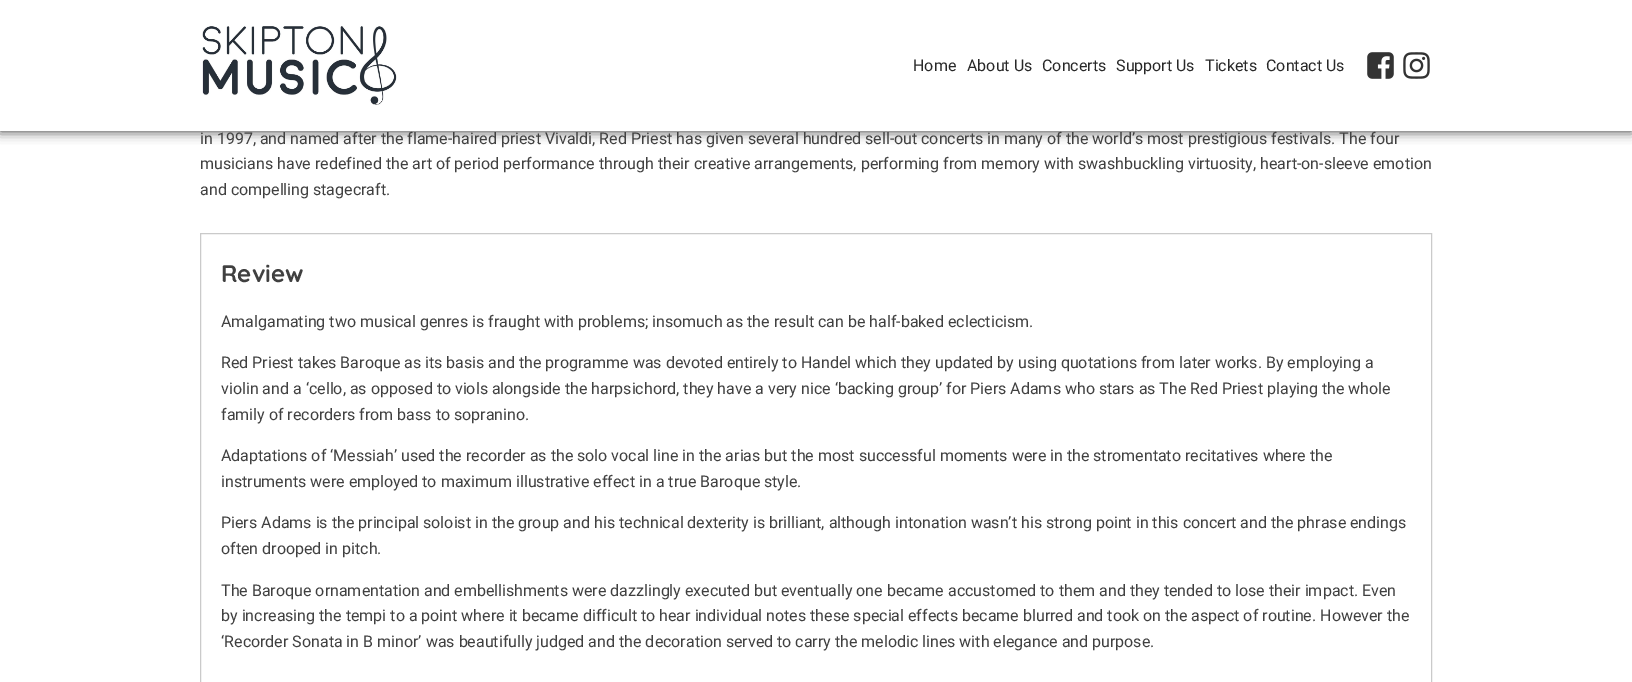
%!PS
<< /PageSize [1632 682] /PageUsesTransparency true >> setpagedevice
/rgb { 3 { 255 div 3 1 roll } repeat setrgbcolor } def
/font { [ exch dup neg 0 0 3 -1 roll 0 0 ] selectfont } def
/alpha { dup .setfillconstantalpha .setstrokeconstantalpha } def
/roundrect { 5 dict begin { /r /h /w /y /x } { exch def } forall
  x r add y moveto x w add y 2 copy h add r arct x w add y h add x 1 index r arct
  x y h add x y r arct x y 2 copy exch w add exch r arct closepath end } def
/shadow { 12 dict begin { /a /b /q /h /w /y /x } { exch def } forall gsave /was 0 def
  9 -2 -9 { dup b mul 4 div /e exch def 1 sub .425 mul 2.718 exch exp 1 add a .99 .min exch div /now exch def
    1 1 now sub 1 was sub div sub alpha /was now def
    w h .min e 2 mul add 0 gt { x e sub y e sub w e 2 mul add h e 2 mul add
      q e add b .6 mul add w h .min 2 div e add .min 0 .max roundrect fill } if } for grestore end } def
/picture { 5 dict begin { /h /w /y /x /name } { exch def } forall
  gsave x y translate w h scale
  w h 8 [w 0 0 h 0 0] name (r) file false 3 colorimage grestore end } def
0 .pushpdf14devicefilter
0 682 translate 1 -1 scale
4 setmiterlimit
255 255 255 rgb
0 0 1632 682 rectfill
48 48 48 rgb
0 0 1632 131 0 6 1 shadow
255 255 255 rgb
0 0 1632 131 rectfill
(img/1.rgb) 202 26 195 79 picture
(img/2.rgb) 1367 52 27 27 picture
(img/3.rgb) 1403 52 27 27 picture
202 202 202 rgb
200.5 233.5 1231 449 rectstroke
/Roboto-Regular 16 font
40 40 40 rgb
[
  [(Home) 913 71]
  [(About Us) 967 71]
  [(Concerts) 1042 71]
  [(Support Us) 1116 71]
  [(Tickets) 1205 71]
  [(Contact Us) 1266 71]
] { aload pop moveto show } forall
64 64 64 rgb
[
  [(in 1997, and named after the flame-haired priest Vivaldi, Red Priest has given several hundred sell-out concerts in many of the world’s most prestigious festivals. The four) 200 144]
  [(musicians have redefined the art of period performance through their creative arrangements, performing from memory with swashbuckling virtuosity, heart-on-sleeve emotion) 200 169]
  [(and compelling stagecraft.) 200 195]
] { aload pop moveto show } forall
/Quicksand-Bold 24 font
221 282 moveto (Review) show
/Roboto-Regular 16 font
[
  [(Amalgamating two musical genres is fraught with problems; insomuch as the result can be half-baked eclecticism.) 221 327]
  [(Red Priest takes Baroque as its basis and the programme was devoted entirely to Handel which they updated by using quotations from later works. By employing a) 221 368]
  [(violin and a ‘cello, as opposed to viols alongside the harpsichord, they have a very nice ‘backing group’ for Piers Adams who stars as The Red Priest playing the whole) 221 394]
  [(family of recorders from bass to sopranino.) 221 420]
  [(Adaptations of ‘Messiah’ used the recorder as the solo vocal line in the arias but the most successful moments were in the stromentato recitatives where the) 221 461]
  [(instruments were employed to maximum illustrative effect in a true Baroque style.) 221 487]
  [(Piers Adams is the principal soloist in the group and his technical dexterity is brilliant, although intonation wasn’t his strong point in this concert and the phrase endings) 221 528]
  [(often drooped in pitch.) 221 554]
  [(The Baroque ornamentation and embellishments were dazzlingly executed but eventually one became accustomed to them and they tended to lose their impact. Even) 221 596]
  [(by increasing the tempi to a point where it became difficult to hear individual notes these special effects became blurred and took on the aspect of routine. However the) 221 621]
  [(‘Recorder Sonata in B minor’ was beautifully judged and the decoration served to carry the melodic lines with elegance and purpose.) 221 647]
] { aload pop moveto show } forall
.poppdf14devicefilter showpage
